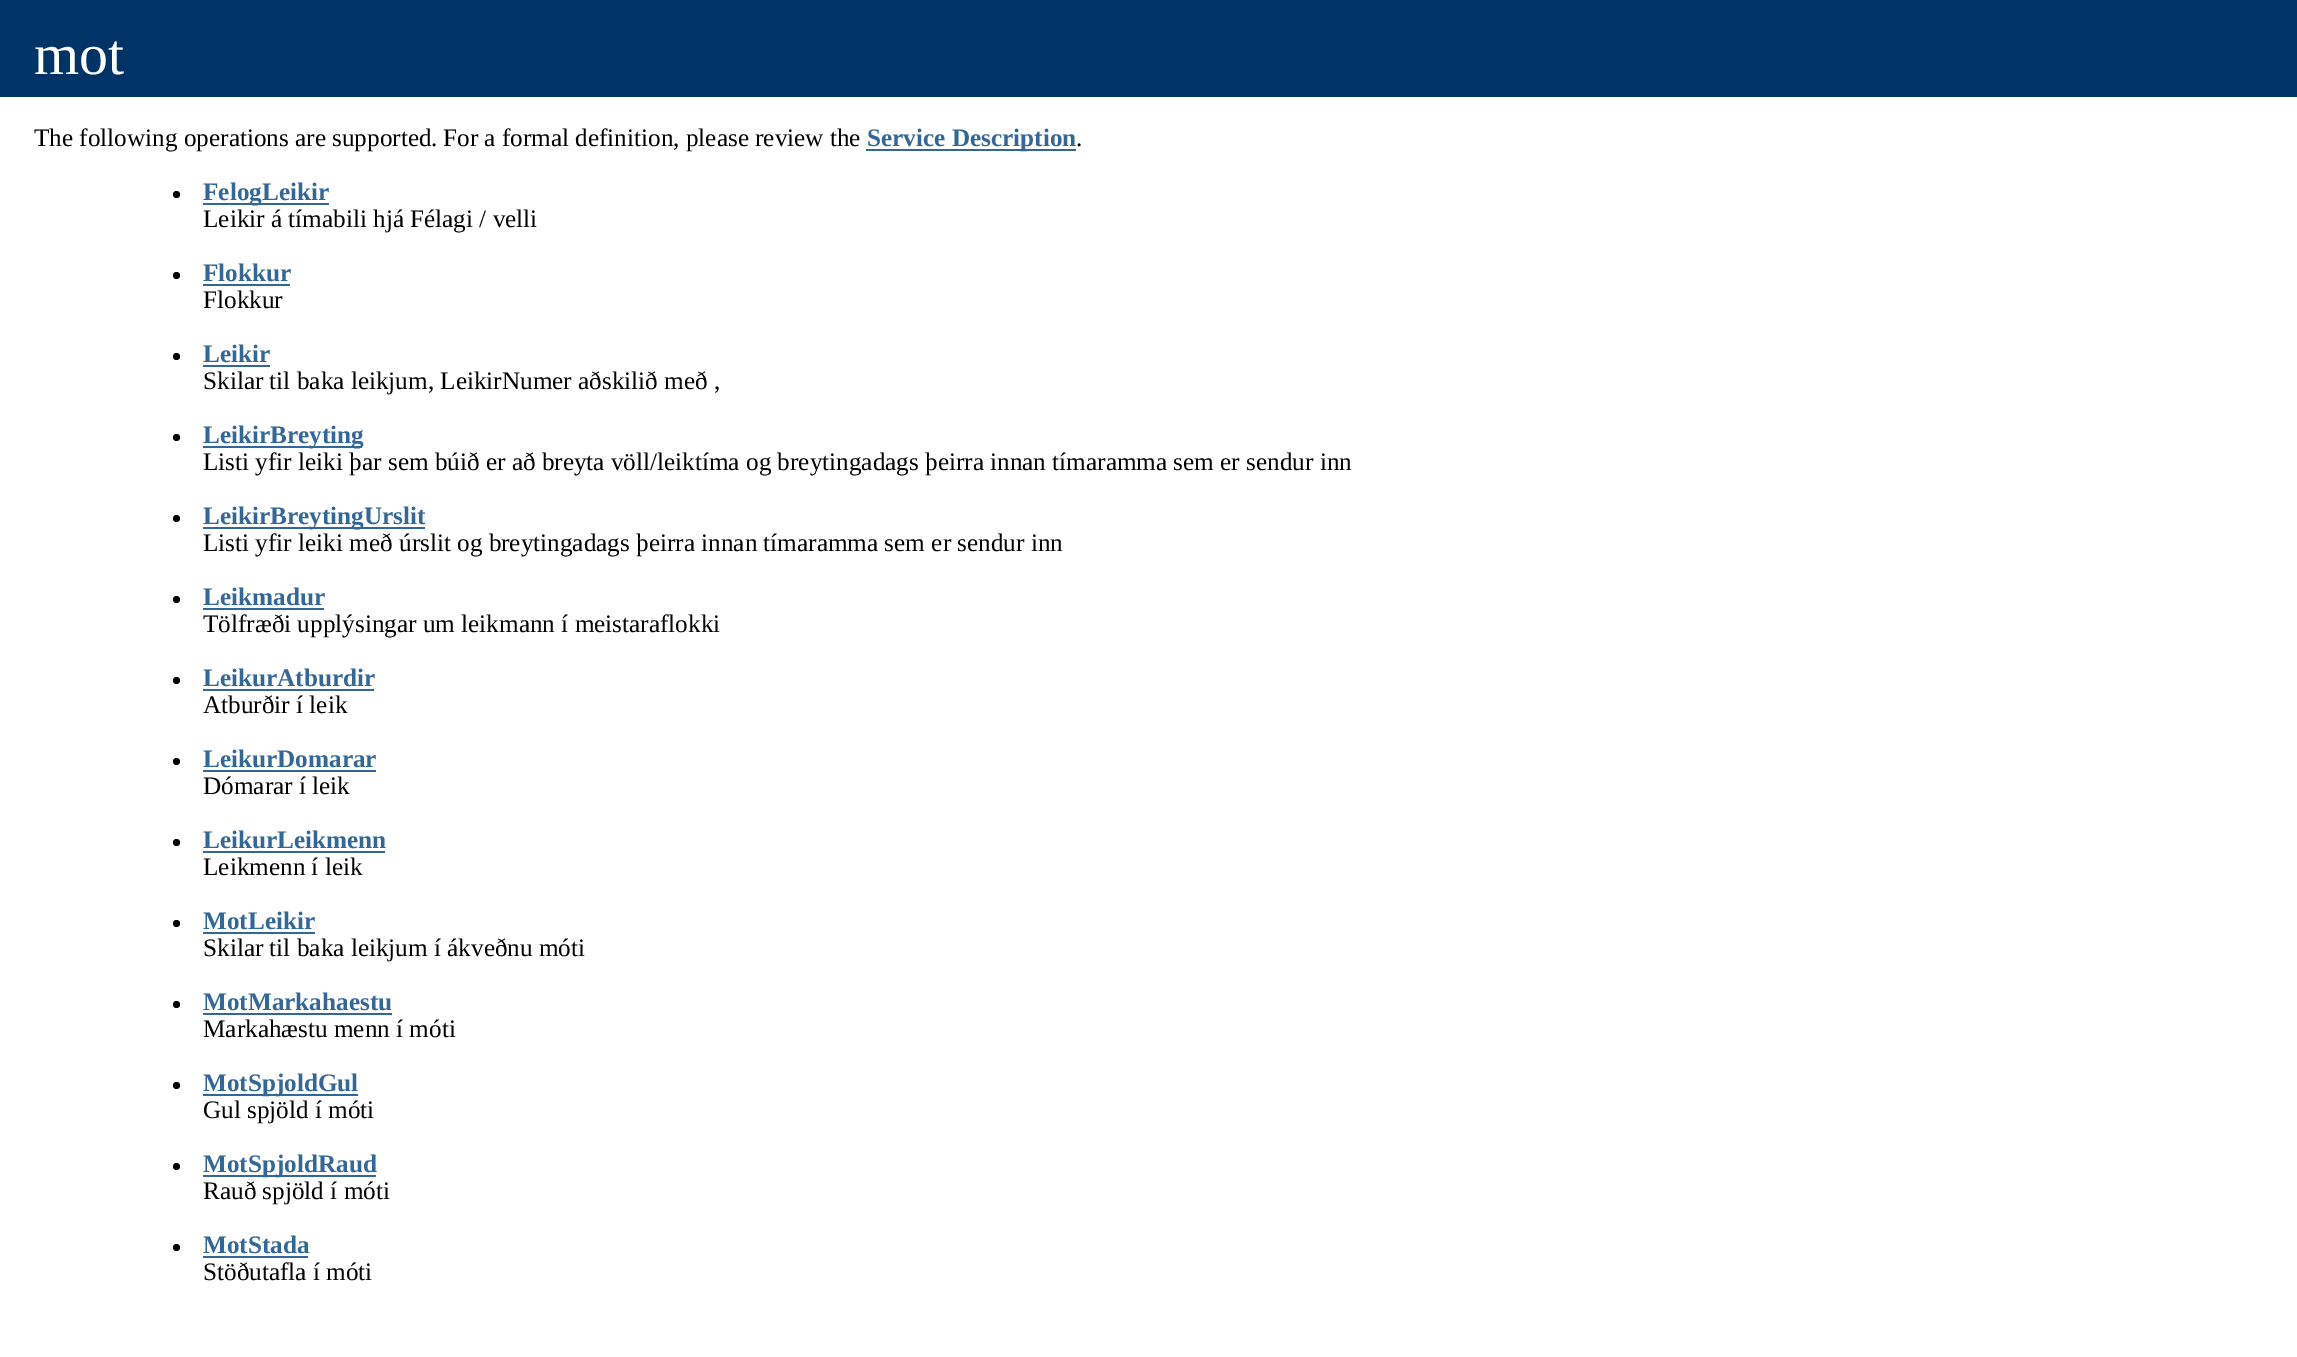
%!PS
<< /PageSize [2297 1357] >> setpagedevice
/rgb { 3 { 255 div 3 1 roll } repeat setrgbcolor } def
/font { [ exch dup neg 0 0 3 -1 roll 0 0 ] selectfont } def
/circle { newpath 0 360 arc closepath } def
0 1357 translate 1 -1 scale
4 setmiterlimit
255 255 255 rgb
0 0 2297 1357 rectfill
0 51 102 rgb
0 0 2297 97 rectfill
51 102 153 rgb
866 149 210 2 rectfill
0 0 0 rgb
176.5 194.5 3.5 circle fill
51 102 153 rgb
203 203 126 2 rectfill
0 0 0 rgb
176.5 275.5 3.5 circle fill
51 102 153 rgb
203 284 87 2 rectfill
0 0 0 rgb
176.5 356.5 3.5 circle fill
51 102 153 rgb
203 365 67 2 rectfill
0 0 0 rgb
176.5 437.5 3.5 circle fill
51 102 153 rgb
203 446 159 2 rectfill
0 0 0 rgb
176.5 518.5 3.5 circle fill
51 102 153 rgb
203 527 222 2 rectfill
0 0 0 rgb
176.5 599.5 3.5 circle fill
51 102 153 rgb
203 608 121 2 rectfill
0 0 0 rgb
176.5 680.5 3.5 circle fill
51 102 153 rgb
203 689 171 2 rectfill
0 0 0 rgb
176.5 761.5 3.5 circle fill
51 102 153 rgb
203 770 173 2 rectfill
0 0 0 rgb
176.5 842.5 3.5 circle fill
51 102 153 rgb
203 851 182 2 rectfill
0 0 0 rgb
176.5 923.5 3.5 circle fill
51 102 153 rgb
203 932 112 2 rectfill
0 0 0 rgb
176.5 1004.5 3.5 circle fill
51 102 153 rgb
203 1013 189 2 rectfill
0 0 0 rgb
176.5 1085.5 3.5 circle fill
51 102 153 rgb
203 1094 155 2 rectfill
0 0 0 rgb
176.5 1166.5 3.5 circle fill
51 102 153 rgb
203 1175 173 2 rectfill
0 0 0 rgb
176.5 1247.5 3.5 circle fill
51 102 153 rgb
203 1256 105 2 rectfill
/LiberationSerif-Regular 58 font
255 255 255 rgb
34 74 moveto (mot) show
/LiberationSerif-Regular 25.2 font
0 0 0 rgb
34 146 moveto (The following operations are supported.) show
443 146 moveto (For a formal definition, please review the) show
/LiberationSerif-Bold 25.2 font
51 102 153 rgb
867 146 moveto (Service Description) show
/LiberationSerif-Regular 25.2 font
0 0 0 rgb
1076 146 moveto (.) show
/LiberationSerif-Bold 25.2 font
51 102 153 rgb
203 200 moveto (FelogLeikir) show
/LiberationSerif-Regular 25.2 font
0 0 0 rgb
203 227 moveto (Leikir á tímabili hjá Félagi / velli) show
/LiberationSerif-Bold 25.2 font
51 102 153 rgb
203 281 moveto (Flokkur) show
/LiberationSerif-Regular 25.2 font
0 0 0 rgb
203 308 moveto (Flokkur) show
/LiberationSerif-Bold 25.2 font
51 102 153 rgb
203 362 moveto (Leikir) show
/LiberationSerif-Regular 25.2 font
0 0 0 rgb
203 389 moveto (Skilar til baka leikjum, LeikirNumer aðskilið með ,) show
/LiberationSerif-Bold 25.2 font
51 102 153 rgb
203 443 moveto (LeikirBreyting) show
/LiberationSerif-Regular 25.2 font
0 0 0 rgb
203 470 moveto (Listi yfir leiki þar sem búið er að breyta völl/leiktíma og breytingadags þeirra innan tímaramma sem er sendur inn) show
/LiberationSerif-Bold 25.2 font
51 102 153 rgb
203 524 moveto (LeikirBreytingUrslit) show
/LiberationSerif-Regular 25.2 font
0 0 0 rgb
203 551 moveto (Listi yfir leiki með úrslit og breytingadags þeirra innan tímaramma sem er sendur inn) show
/LiberationSerif-Bold 25.2 font
51 102 153 rgb
203 605 moveto (Leikmadur) show
/LiberationSerif-Regular 25.2 font
0 0 0 rgb
203 632 moveto (Tölfræði upplýsingar um leikmann í meistaraflokki) show
/LiberationSerif-Bold 25.2 font
51 102 153 rgb
203 686 moveto (LeikurAtburdir) show
/LiberationSerif-Regular 25.2 font
0 0 0 rgb
203 713 moveto (Atburðir í leik) show
/LiberationSerif-Bold 25.2 font
51 102 153 rgb
203 767 moveto (LeikurDomarar) show
/LiberationSerif-Regular 25.2 font
0 0 0 rgb
203 794 moveto (Dómarar í leik) show
/LiberationSerif-Bold 25.2 font
51 102 153 rgb
203 848 moveto (LeikurLeikmenn) show
/LiberationSerif-Regular 25.2 font
0 0 0 rgb
203 875 moveto (Leikmenn í leik) show
/LiberationSerif-Bold 25.2 font
51 102 153 rgb
203 929 moveto (MotLeikir) show
/LiberationSerif-Regular 25.2 font
0 0 0 rgb
203 956 moveto (Skilar til baka leikjum í ákveðnu móti) show
/LiberationSerif-Bold 25.2 font
51 102 153 rgb
203 1010 moveto (MotMarkahaestu) show
/LiberationSerif-Regular 25.2 font
0 0 0 rgb
203 1037 moveto (Markahæstu menn í móti) show
/LiberationSerif-Bold 25.2 font
51 102 153 rgb
203 1091 moveto (MotSpjoldGul) show
/LiberationSerif-Regular 25.2 font
0 0 0 rgb
203 1118 moveto (Gul spjöld í móti) show
/LiberationSerif-Bold 25.2 font
51 102 153 rgb
203 1172 moveto (MotSpjoldRaud) show
/LiberationSerif-Regular 25.2 font
0 0 0 rgb
203 1199 moveto (Rauð spjöld í móti) show
/LiberationSerif-Bold 25.2 font
51 102 153 rgb
203 1253 moveto (MotStada) show
/LiberationSerif-Regular 25.2 font
0 0 0 rgb
203 1280 moveto (Stöðutafla í móti) show
showpage
